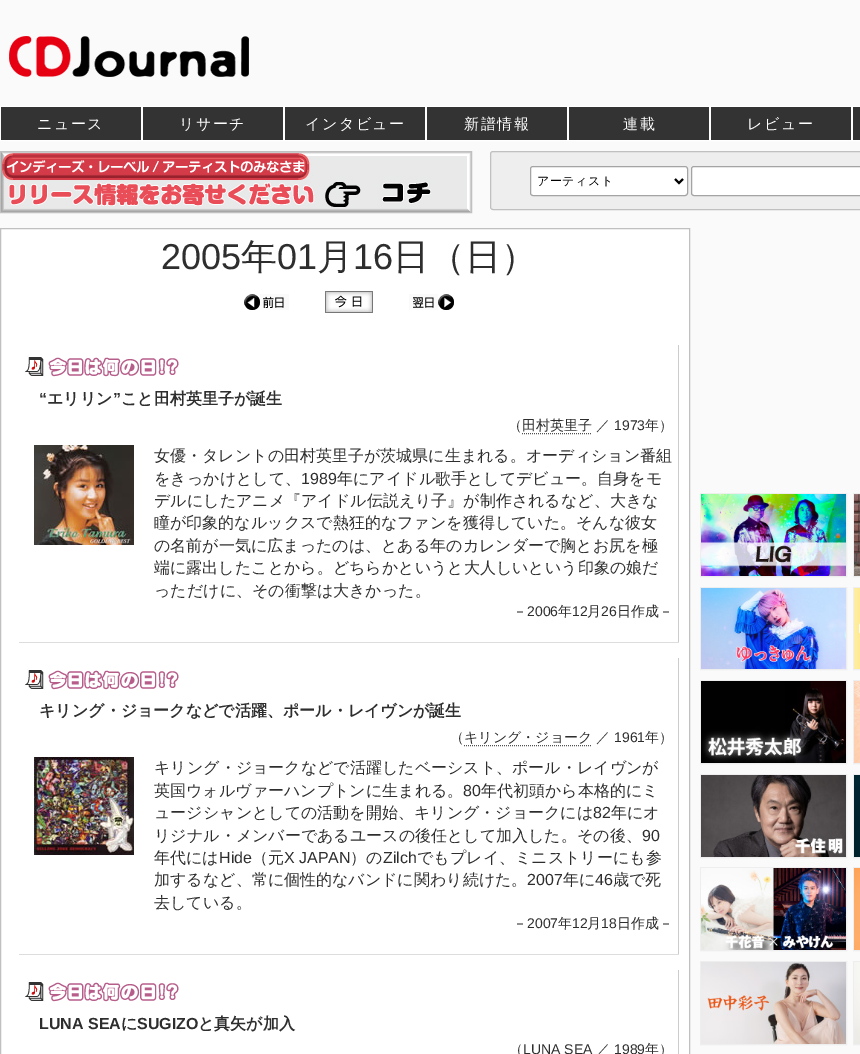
%!PS
<< /PageSize [860 1054] >> setpagedevice
/rgb { 3 { 255 div 3 1 roll } repeat setrgbcolor } def
/font { [ exch dup neg 0 0 3 -1 roll 0 0 ] selectfont } def
/roundrect { 5 dict begin { /r /h /w /y /x } { exch def } forall
  x r add y moveto x w add y 2 copy h add r arct x w add y h add x 1 index r arct
  x y h add x y r arct x y 2 copy exch w add exch r arct closepath end } def
/picture { 5 dict begin { /h /w /y /x /name } { exch def } forall
  gsave x y translate w h scale
  w h 8 [w 0 0 h 0 0] name (r) file false 3 colorimage grestore end } def
0 1054 translate 1 -1 scale
4 setmiterlimit
250 250 250 rgb
0 0 860 1054 rectfill
(img/1.rgb) 9 36 240 43 picture
255 255 255 rgb
0.5 106.5 141 34 rectstroke
51 51 51 rgb
1 107 140 33 rectfill
255 255 255 rgb
142.5 106.5 141 34 rectstroke
51 51 51 rgb
143 107 140 33 rectfill
255 255 255 rgb
284.5 106.5 141 34 rectstroke
51 51 51 rgb
285 107 140 33 rectfill
255 255 255 rgb
426.5 106.5 141 34 rectstroke
51 51 51 rgb
427 107 140 33 rectfill
255 255 255 rgb
568.5 106.5 141 34 rectstroke
51 51 51 rgb
569 107 140 33 rectfill
255 255 255 rgb
710.5 106.5 141 34 rectstroke
51 51 51 rgb
711 107 140 33 rectfill
255 255 255 rgb
852.5 106.5 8 34 rectstroke
51 51 51 rgb
853 107 7 33 rectfill
192 192 192 rgb
0.5 151.5 471 61 rectstroke
(img/2.rgb) 1 152 470 60 picture
238 238 238 rgb
490.5 151.5 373 58 2.5 roundrect gsave fill grestore
192 192 192 rgb
stroke
255 255 255 rgb
531 167 156 28 2 roundrect fill
0 0 0 rgb
2 setlinewidth
675 179 moveto 679 183 lineto 683 179 lineto stroke
164 164 164 rgb
1 setlinewidth
530.5 166.5 157 29 2.5 roundrect stroke
255 255 255 rgb
692 167 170 28 2 roundrect fill
164 164 164 rgb
691.5 166.5 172 29 2.5 roundrect stroke
255 255 255 rgb
0.5 228.5 moveto 689.5 228.5 lineto 689.5 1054.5 lineto 0.5 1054.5 lineto closepath gsave fill grestore
192 192 192 rgb
stroke
(img/3.rgb) 244 294 45 16 picture
(img/4.rgb) 325 291 48 22 picture
(img/5.rgb) 409 294 45 16 picture
204 204 204 rgb
678 345 1 298 rectfill
221 221 221 rgb
19 642 660 1 rectfill
(img/6.rgb) 24 355 155 22 picture
81 81 81 rgb
[1 1] 0 setdash
522 433.5 moveto 592 433.5 lineto stroke
(img/7.rgb) 34 445 100 100 picture
204 204 204 rgb
678 658 1 297 rectfill
221 221 221 rgb
19 954 660 1 rectfill
(img/6.rgb) 24 668 155 22 picture
81 81 81 rgb
464 745.5 moveto 592 745.5 lineto stroke
(img/8.rgb) 34 757 100 98 picture
204 204 204 rgb
678 970 1 84 rectfill
(img/6.rgb) 24 980 155 22 picture
238 238 238 rgb
[] 0 setdash
700.5 493.5 146 83 rectstroke
853.5 493.5 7 83 rectstroke
(img/9.rgb) 701 494 145 82 picture
(img/10.rgb) 854 494 6 82 picture
700.5 587.5 146 82 rectstroke
853.5 587.5 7 82 rectstroke
(img/11.rgb) 701 588 145 81 picture
(img/12.rgb) 854 588 6 81 picture
700.5 680.5 146 83 rectstroke
853.5 680.5 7 83 rectstroke
(img/13.rgb) 701 681 145 82 picture
(img/14.rgb) 854 681 6 82 picture
700.5 774.5 146 83 rectstroke
853.5 774.5 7 83 rectstroke
(img/15.rgb) 701 775 145 82 picture
(img/16.rgb) 854 775 6 82 picture
700.5 867.5 146 83 rectstroke
853.5 867.5 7 83 rectstroke
(img/17.rgb) 701 868 145 82 picture
(img/18.rgb) 854 868 6 82 picture
700.5 961.5 146 83 rectstroke
853.5 961.5 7 83 rectstroke
(img/19.rgb) 701 962 145 82 picture
(img/20.rgb) 854 962 6 82 picture
/WenQuanYiZenHei-Medium 15 font
255 255 255 rgb
37 129 moveto 1.5 0 (ニュース) ashow
179 129 moveto 1.5 0 (リサーチ) ashow
305 129 moveto 1.5 0 (インタビュー) ashow
464 129 moveto 1.5 0 (新譜情報) ashow
623 129 moveto 1.5 0 (連載) ashow
747 129 moveto 1.5 0 (レビュー) ashow
/WenQuanYiZenHei-Medium 12 font
0 0 0 rgb
537 185 moveto 0.5 0 (アーティスト) ashow
/LiberationSans-Regular 36 font
46 46 46 rgb
161 269 moveto (2005) show
/WenQuanYiZenHei-Medium 36 font
241 269 moveto (年) show
/LiberationSans-Regular 36 font
277 269 moveto (01) show
/WenQuanYiZenHei-Medium 36 font
317 269 moveto (月) show
/LiberationSans-Regular 36 font
353 269 moveto (16) show
/WenQuanYiZenHei-Medium 36 font
393 269 moveto (日（日）) show
/LiberationSans-Bold 16 font
39 404 moveto (“) show
/WenQuanYiZenHei-Bold 16 font
47 404 moveto (エリリン) show
/LiberationSans-Bold 16 font
113 404 moveto (”) show
/WenQuanYiZenHei-Bold 16 font
121 404 moveto (こと田村英里子が誕生) show
/WenQuanYiZenHei-Medium 14 font
508 430 moveto (（田村英里子) show
596 430 moveto (／) show
/LiberationSans-Regular 14 font
614 430 moveto (1973) show
/WenQuanYiZenHei-Medium 14 font
645 430 moveto (年）) show
/WenQuanYiZenHei-Medium 16 font
154 461 moveto (女優・タレントの田村英里子が茨城県に生まれる。オーディション番組) show
154 484 moveto (をきっかけとして、) show
/LiberationSans-Regular 16 font
301 484 moveto (1989) show
/WenQuanYiZenHei-Medium 16 font
[
  [(年にアイドル歌手としてデビュー。自身をモ) 337 484]
  [(デルにしたアニメ『アイドル伝説えり子』が制作されるなど、大きな) 154 506]
  [(瞳が印象的なルックスで熱狂的なファンを獲得していた。そんな彼女) 154 528]
  [(の名前が一気に広まったのは、とある年のカレンダーで胸とお尻を極) 154 551]
  [(端に露出したことから。どちらかというと大人しいという印象の娘だ) 154 573]
  [(っただけに、その衝撃は大きかった。) 154 596]
] { aload pop moveto show } forall
/WenQuanYiZenHei-Medium 14 font
513 616 moveto (－) show
/LiberationSans-Regular 14 font
527 616 moveto (2006) show
/WenQuanYiZenHei-Medium 14 font
558 616 moveto (年) show
/LiberationSans-Regular 14 font
572 616 moveto (12) show
/WenQuanYiZenHei-Medium 14 font
587 616 moveto (月) show
/LiberationSans-Regular 14 font
601 616 moveto (26) show
/WenQuanYiZenHei-Medium 14 font
617 616 moveto (日作成－) show
/WenQuanYiZenHei-Bold 16 font
39 716 moveto (キリング・ジョークなどで活躍、ポール・レイヴンが誕生) show
/WenQuanYiZenHei-Medium 14 font
450 742 moveto (（キリング・ジョーク) show
596 742 moveto (／) show
/LiberationSans-Regular 14 font
614 742 moveto (1961) show
/WenQuanYiZenHei-Medium 14 font
645 742 moveto (年）) show
/WenQuanYiZenHei-Medium 16 font
154 773 moveto (キリング・ジョークなどで活躍したベーシスト、ポール・レイヴンが) show
154 796 moveto (英国ウォルヴァーハンプトンに生まれる。) show
/LiberationSans-Regular 16 font
463 796 moveto (80) show
/WenQuanYiZenHei-Medium 16 font
481 796 moveto (年代初頭から本格的にミ) show
154 818 moveto (ュージシャンとしての活動を開始、キリング・ジョークには) show
/LiberationSans-Regular 16 font
593 818 moveto (82) show
/WenQuanYiZenHei-Medium 16 font
611 818 moveto (年にオ) show
154 841 moveto (リジナル・メンバーであるユースの後任として加入した。その後、) show
/LiberationSans-Regular 16 font
642 841 moveto (90) show
/WenQuanYiZenHei-Medium 16 font
154 863 moveto (年代には) show
/LiberationSans-Regular 16 font
219 863 moveto (Hide) show
/WenQuanYiZenHei-Medium 16 font
252 863 moveto (（元) show
/LiberationSans-Regular 16 font
284 863 moveto (X JAPAN) show
/WenQuanYiZenHei-Medium 16 font
350 863 moveto (）の) show
/LiberationSans-Regular 16 font
383 863 moveto (Zilch) show
/WenQuanYiZenHei-Medium 16 font
417 863 moveto (でもプレイ、ミニストリーにも参) show
154 885 moveto (加するなど、常に個性的なバンドに関わり続けた。) show
/LiberationSans-Regular 16 font
527 885 moveto (2007) show
/WenQuanYiZenHei-Medium 16 font
563 885 moveto (年に) show
/LiberationSans-Regular 16 font
595 885 moveto (46) show
/WenQuanYiZenHei-Medium 16 font
613 885 moveto (歳で死) show
154 908 moveto (去している。) show
/WenQuanYiZenHei-Medium 14 font
513 928 moveto (－) show
/LiberationSans-Regular 14 font
527 928 moveto (2007) show
/WenQuanYiZenHei-Medium 14 font
558 928 moveto (年) show
/LiberationSans-Regular 14 font
572 928 moveto (12) show
/WenQuanYiZenHei-Medium 14 font
587 928 moveto (月) show
/LiberationSans-Regular 14 font
601 928 moveto (18) show
/WenQuanYiZenHei-Medium 14 font
617 928 moveto (日作成－) show
/LiberationSans-Bold 16 font
39 1029 moveto (LUNA SEA) show
/WenQuanYiZenHei-Bold 16 font
121 1029 moveto (に) show
/LiberationSans-Bold 16 font
137 1029 moveto (SUGIZO) show
/WenQuanYiZenHei-Bold 16 font
198 1029 moveto (と真矢が加入) show
/WenQuanYiZenHei-Medium 14 font
509 1054 moveto (（) show
/LiberationSans-Regular 14 font
523 1054 moveto (LUNA SEA) show
/WenQuanYiZenHei-Medium 14 font
596 1054 moveto (／) show
/LiberationSans-Regular 14 font
614 1054 moveto (1989) show
/WenQuanYiZenHei-Medium 14 font
645 1054 moveto (年）) show
showpage
